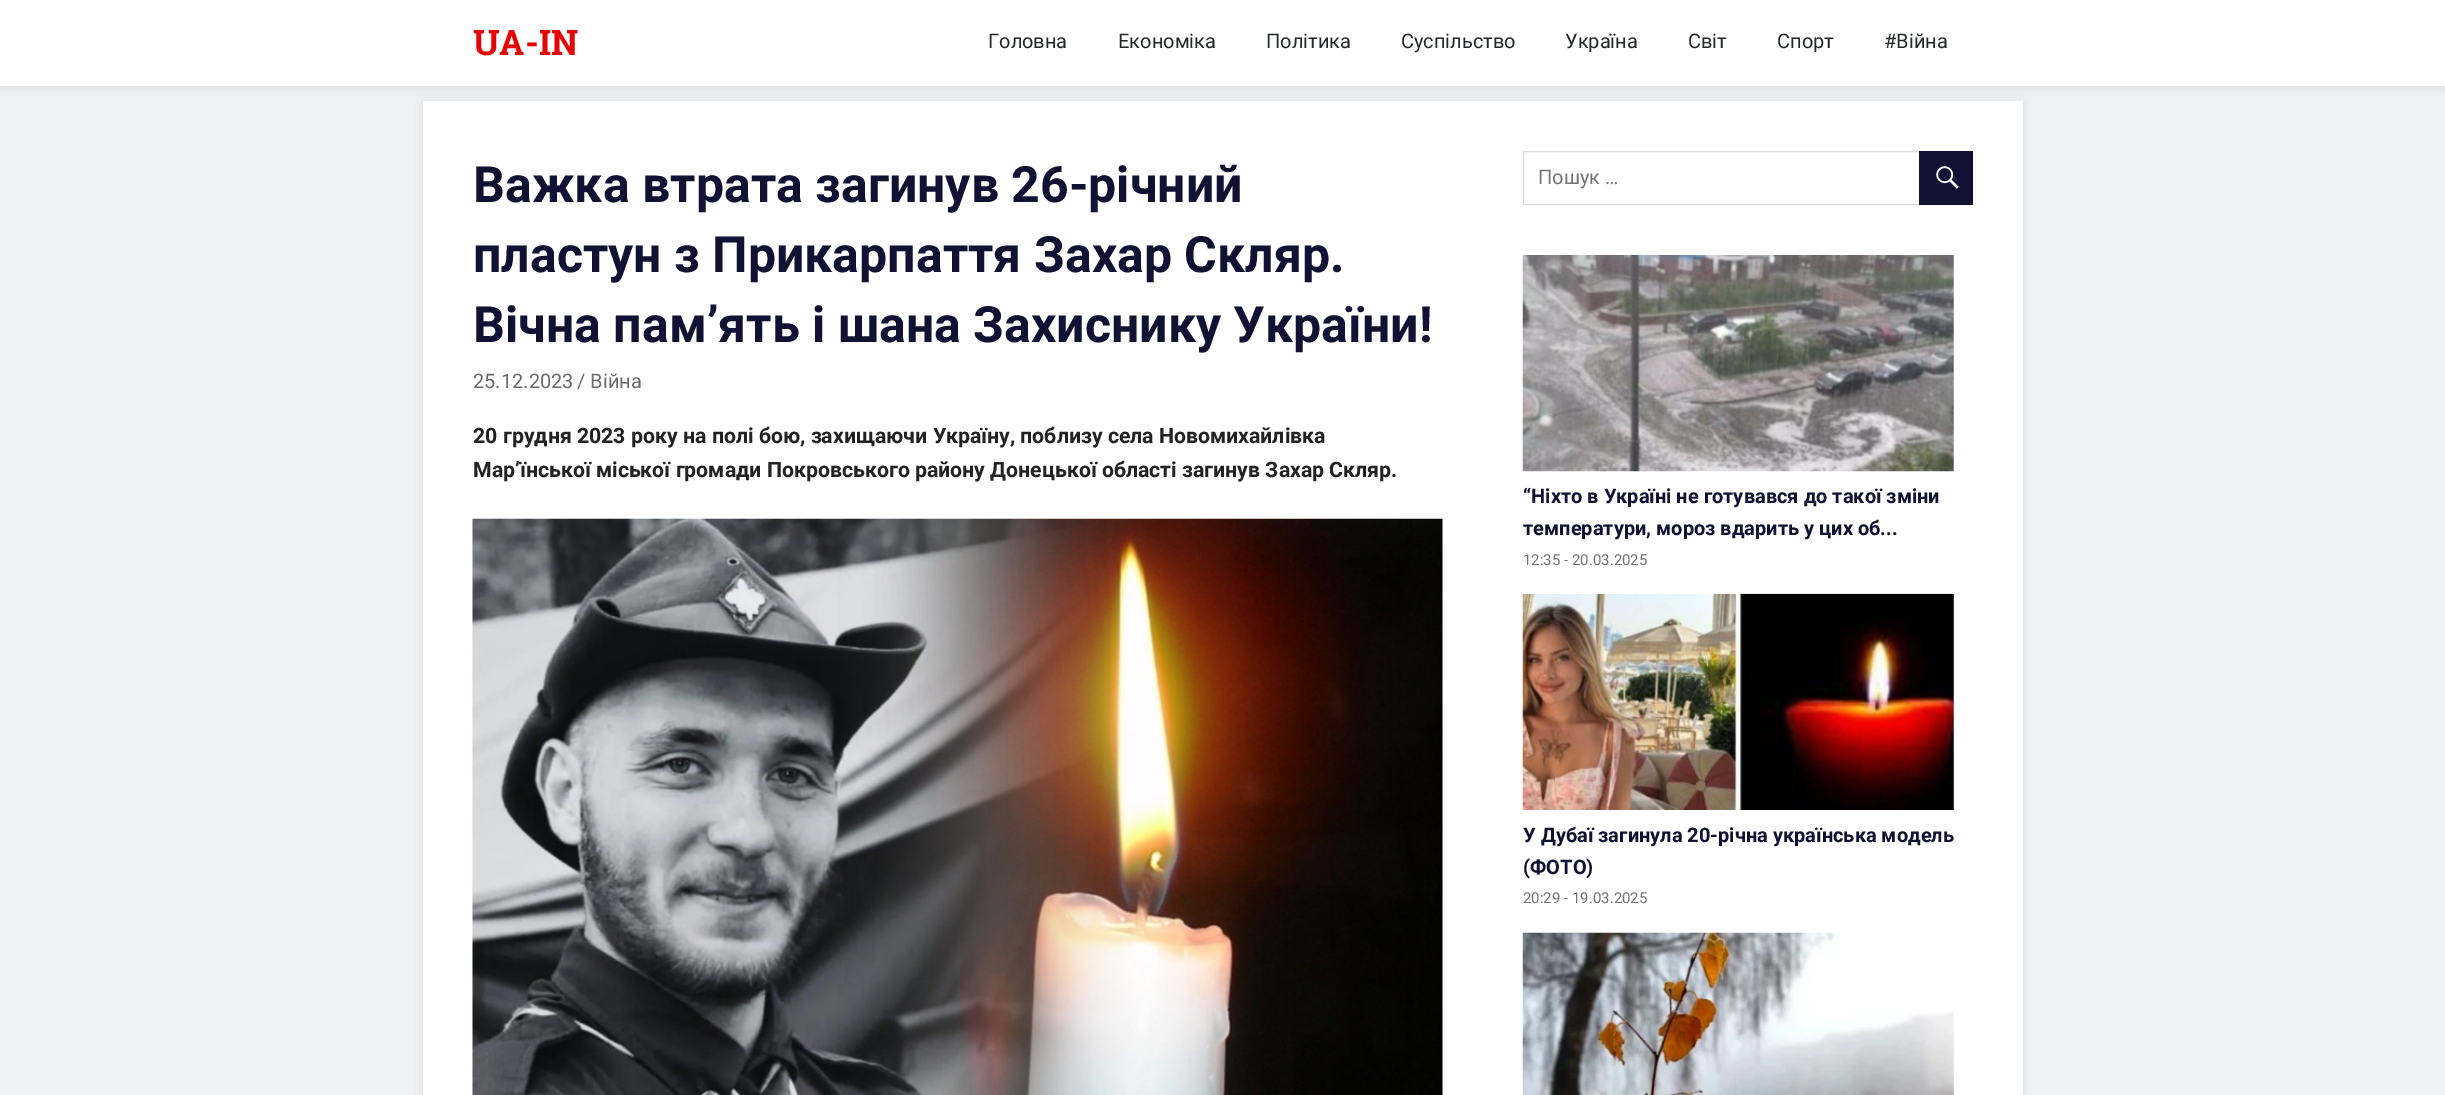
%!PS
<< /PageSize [2445 1095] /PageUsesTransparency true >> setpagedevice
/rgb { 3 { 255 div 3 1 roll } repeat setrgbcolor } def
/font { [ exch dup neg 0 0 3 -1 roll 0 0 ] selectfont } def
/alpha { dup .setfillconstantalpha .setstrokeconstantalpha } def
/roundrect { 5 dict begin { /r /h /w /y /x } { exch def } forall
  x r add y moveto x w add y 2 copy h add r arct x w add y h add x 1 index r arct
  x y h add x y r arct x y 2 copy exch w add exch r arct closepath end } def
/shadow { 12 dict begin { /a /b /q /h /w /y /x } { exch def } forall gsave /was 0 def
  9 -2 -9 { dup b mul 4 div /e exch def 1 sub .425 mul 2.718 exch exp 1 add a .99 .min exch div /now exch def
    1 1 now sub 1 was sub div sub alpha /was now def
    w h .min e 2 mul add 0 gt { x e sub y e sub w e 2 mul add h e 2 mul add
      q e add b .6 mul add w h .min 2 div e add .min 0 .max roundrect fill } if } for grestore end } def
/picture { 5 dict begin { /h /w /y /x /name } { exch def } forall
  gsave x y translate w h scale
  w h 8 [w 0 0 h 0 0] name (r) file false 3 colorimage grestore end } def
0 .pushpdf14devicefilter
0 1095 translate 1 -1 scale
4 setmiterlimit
239 241 242 rgb
0 0 2445 1095 rectfill
33 40 48 rgb
423 103 1600 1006 0 4.5 0.1 shadow
255 255 255 rgb
423 101 1600 994 rectfill
33 40 48 rgb
0 1 2445 87 0 4.5 0.1 shadow
255 255 255 rgb
0 0 2445 86 rectfill
(img/1.rgb) 472 518 971 577 picture
221 221 221 rgb
1523.5 151.5 449 53 rectstroke
17 17 51 rgb
1919 151 54 54 rectfill
(img/2.rgb) 1936 166 23 23 picture
(img/3.rgb) 1522 255 432 217 picture
(img/4.rgb) 1522 593 432 217 picture
(img/5.rgb) 1522 932 432 163 picture
/RobotoSlab-Bold 35 font
230 3 3 rgb
473 55 moveto (UA-IN) show
/Roboto-Regular 20 font
36 40 41 rgb
[
  [(Головна) 988 48]
  [(Економіка) 1118 48]
  [(Політика) 1266 48]
  [(Суспільство) 1401 48]
  [(Україна) 1565 48]
  [(Світ) 1688 48]
  [(Спорт) 1777 48]
  [(#Війна) 1884 48]
] { aload pop moveto show } forall
/Roboto-Bold 50 font
17 17 51 rgb
[
  [(Baжкa втpaтa загинув 26-річний) 473 202]
  [(пластун з Прикарпаття Захар Скляр.) 473 272]
  [(Вічна пам’ять і шана Захиснику України!) 473 342]
] { aload pop moveto show } forall
/Roboto-Regular 20 font
107 107 107 rgb
473 388 moveto (25.12.2023) show
577 388 moveto (/ Війна) show
/Roboto-Bold 21.25 font
34 34 34 rgb
473 443 moveto (20 грудня 2023 року на полі бою, захищаючи Україну, поблизу села Новомихайлівка) show
473 477 moveto (Мар’їнської міської громади Покровського району Донецької області загинув Захар Скляр.) show
/Roboto-Regular 20 font
115 115 115 rgb
1538 184 moveto (Пошук …) show
/Roboto-Bold 20 font
17 17 51 rgb
1523 503 moveto (“Ніхто в Україні не готувався до такої зміни) show
gsave
1523 481 450 100 rectclip
1523 535 moveto (температури, мороз вдарить у цих об...) show
grestore
/Roboto-Regular 15 font
115 115 115 rgb
1523 565 moveto (12:35 - 20.03.2025) show
/Roboto-Bold 20 font
17 17 51 rgb
1523 842 moveto (У Дубаї загинула 20-річна українська модель) show
1523 874 moveto (\(ФОТО\)) show
/Roboto-Regular 15 font
115 115 115 rgb
1523 903 moveto (20:29 - 19.03.2025) show
.poppdf14devicefilter showpage
